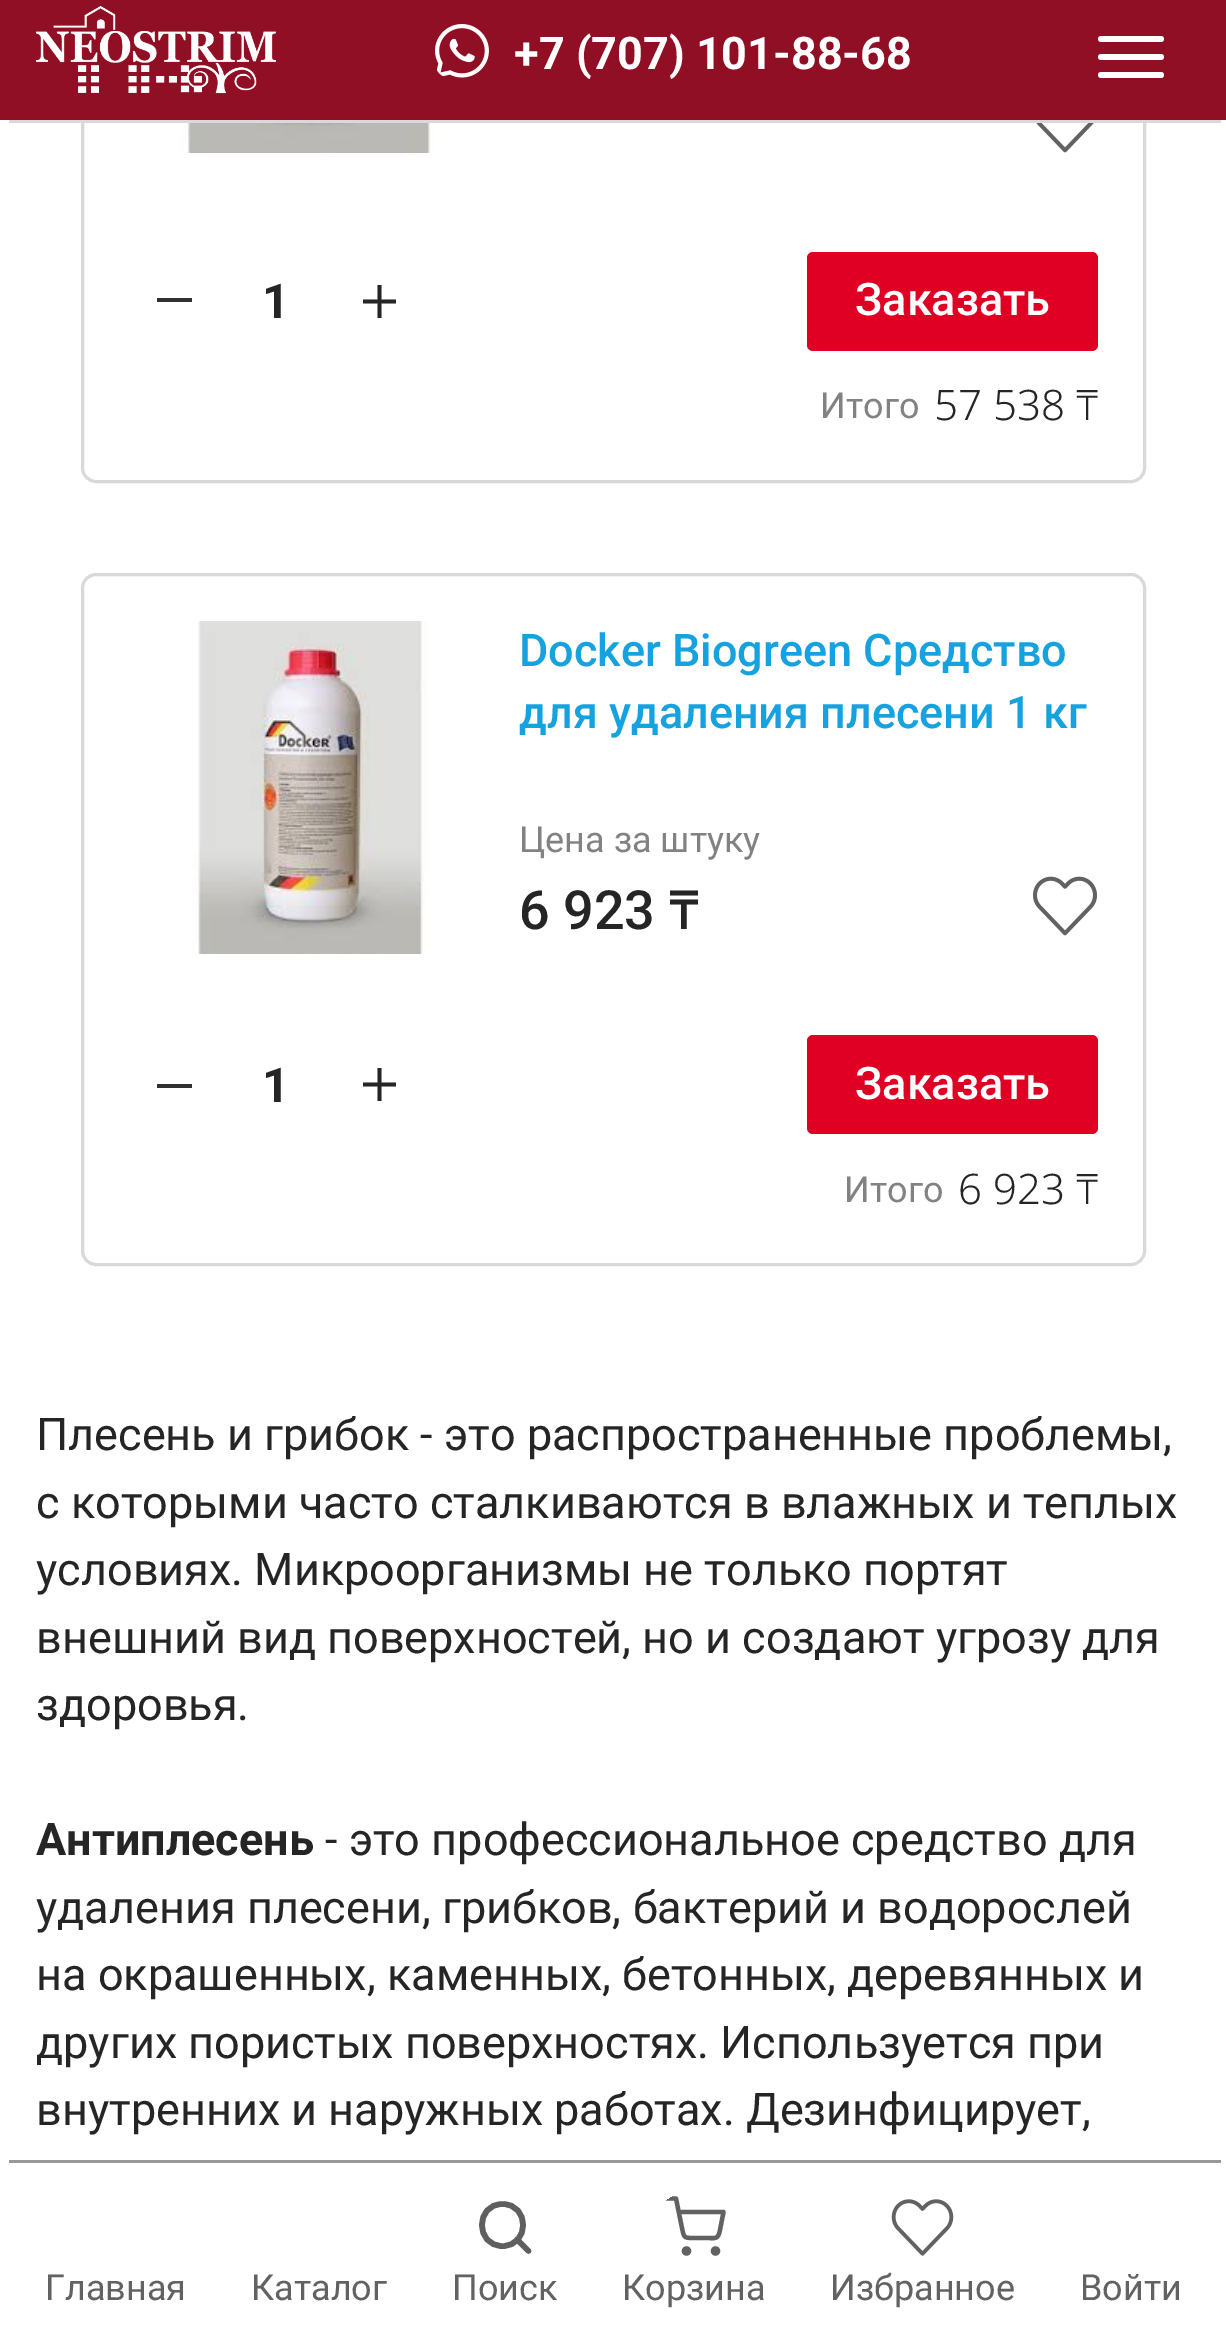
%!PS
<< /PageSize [1226 2340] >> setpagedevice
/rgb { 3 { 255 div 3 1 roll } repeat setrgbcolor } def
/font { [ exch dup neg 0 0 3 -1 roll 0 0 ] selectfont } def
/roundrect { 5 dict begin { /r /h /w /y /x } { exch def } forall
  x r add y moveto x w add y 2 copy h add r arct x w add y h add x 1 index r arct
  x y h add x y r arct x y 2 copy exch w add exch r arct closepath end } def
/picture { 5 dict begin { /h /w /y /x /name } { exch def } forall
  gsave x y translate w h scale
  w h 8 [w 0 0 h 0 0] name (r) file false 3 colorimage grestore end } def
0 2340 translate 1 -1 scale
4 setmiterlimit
255 255 255 rgb
0 0 1226 2340 rectfill
217 217 217 rgb
3 setlinewidth
82.5 -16.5 1062 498 13.5 roundrect stroke
255 255 255 rgb
0 0 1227 123 15 roundrect fill
217 217 217 rgb
9 120 1212 3 rectfill
145 15 36 rgb
0 0 1226 120 rectfill
(img/1.rgb) 36 6 240 88 picture
(img/2.rgb) 435 24 54 54 picture
255 255 255 rgb
1098 36 66 6 3 roundrect fill
1098 54 66 6 3 roundrect fill
1098 72 66 6 3 roundrect fill
(img/3.rgb) 181 123 255 30 picture
(img/4.rgb) 1036 123 58 30 picture
49 48 48 rgb
157 298 35 4 rectfill
38 37 37 rgb
377.5 303.5 moveto 377.5 318 lineto 381.5 318 lineto 381.5 303.5 lineto 396 303.5 lineto 396 299.5 lineto 381.5 299.5 lineto 381.5 285 lineto 377.5 285 lineto 377.5 299.5 lineto 363 299.5 lineto 363 303.5 lineto closepath eofill
223 0 36 rgb
807 252 291 99 6 roundrect fill
217 217 217 rgb
82.5 574.5 1062 690 13.5 roundrect stroke
(img/5.rgb) 192 621 236 333 picture
(img/6.rgb) 1032 876 66 60 picture
49 48 48 rgb
157 1084 35 4 rectfill
38 37 37 rgb
377.5 1086.5 moveto 377.5 1101 lineto 381.5 1101 lineto 381.5 1086.5 lineto 396 1086.5 lineto 396 1082.5 lineto 381.5 1082.5 lineto 381.5 1068 lineto 377.5 1068 lineto 377.5 1082.5 lineto 363 1082.5 lineto 363 1086.5 lineto closepath eofill
223 0 36 rgb
807 1035 291 99 6 roundrect fill
153 153 153 rgb
9 2160 1212 3 rectfill
95 95 95 rgb
5.6 setlinewidth
1 setlinecap
1 setlinejoin
502.5 2246 moveto 530 2246 530 2204 502.5 2204 curveto 475 2204 475 2246 502.5 2246 curveto closepath 528.5 2251 moveto 517 2239.5 lineto stroke
98 98 98 rgb
4.3 setlinewidth
686.5 2253.5 moveto 690 2253.5 690 2248.5 686.5 2248.5 curveto 683 2248.5 683 2253.5 686.5 2253.5 curveto closepath 715.5 2253.5 moveto 719 2253.5 719 2248.5 715.5 2248.5 curveto 712 2248.5 712 2253.5 715.5 2253.5 curveto closepath stroke
gsave
663 2196 63 63 15 roundrect clip newpath
665.5 2198.5 moveto 676 2198.5 lineto 682 2228 lineto 684 2237 683.5 2238 692.5 2238 curveto 705.5 2238 lineto 715.5 2238 718 2240 720 2230 curveto 723.5 2212 lineto 679 2212 lineto stroke
grestore
(img/7.rgb) 891 2199 63 57 picture
/Roboto-Bold 45 font
255 255 255 rgb
514 69 moveto (+7 \(707\) 101-88-68) show
/Roboto-Bold 48 font
38 37 37 rgb
262 318 moveto (1) show
/Roboto-Medium 45 font
255 255 255 rgb
855 315 moveto (Заказать) show
/Roboto-Regular 36 font
130 130 130 rgb
820 418 moveto (Итого) show
/NotoSans-Light 42 font
38 37 37 rgb
934 420 moveto (57 538 ₸) show
/Roboto-Medium 45 font
22 162 222 rgb
519 666 moveto (Docker Biogreen Средство) show
519 728 moveto (для удаления плесени 1 кг) show
/Roboto-Regular 36 font
130 130 130 rgb
519 852 moveto (Цена за штуку) show
/Roboto-Medium 54 font
38 37 37 rgb
519 929 moveto (6 923) show
/NotoSans-Medium 54 font
669 929 moveto (₸) show
/Roboto-Bold 48 font
262 1102 moveto (1) show
/Roboto-Medium 45 font
255 255 255 rgb
855 1099 moveto (Заказать) show
/Roboto-Regular 36 font
130 130 130 rgb
844 1202 moveto (Итого) show
/NotoSans-Light 42 font
38 37 37 rgb
958 1204 moveto (6 923 ₸) show
/Roboto-Regular 45 font
[
  [(Плесень и грибок - это распространенные проблемы,) 36 1450]
  [(с которыми часто сталкиваются в влажных и теплых) 36 1518]
  [(условиях. Микроорганизмы не только портят) 36 1585]
  [(внешний вид поверхностей, но и создают угрозу для) 36 1653]
  [(здоровья.) 36 1720]
] { aload pop moveto show } forall
/Roboto-Bold 45 font
36 1855 moveto (Антиплесень) show
/Roboto-Regular 45 font
[
  [(- это профессиональное средство для) 325 1855]
  [(удаления плесени, грибков, бактерий и водорослей) 36 1923]
  [(на окрашенных, каменных, бетонных, деревянных и) 36 1990]
  [(других пористых поверхностях. Используется при) 36 2058]
  [(внутренних и наружных работах. Дезинфицирует,) 36 2125]
] { aload pop moveto show } forall
/Roboto-Regular 36 font
98 98 98 rgb
[
  [(Главная) 45 2300]
  [(Каталог) 251 2300]
  [(Поиск) 452 2300]
  [(Корзина) 622 2300]
  [(Избранное) 830 2300]
  [(Войти) 1080 2300]
] { aload pop moveto show } forall
showpage
